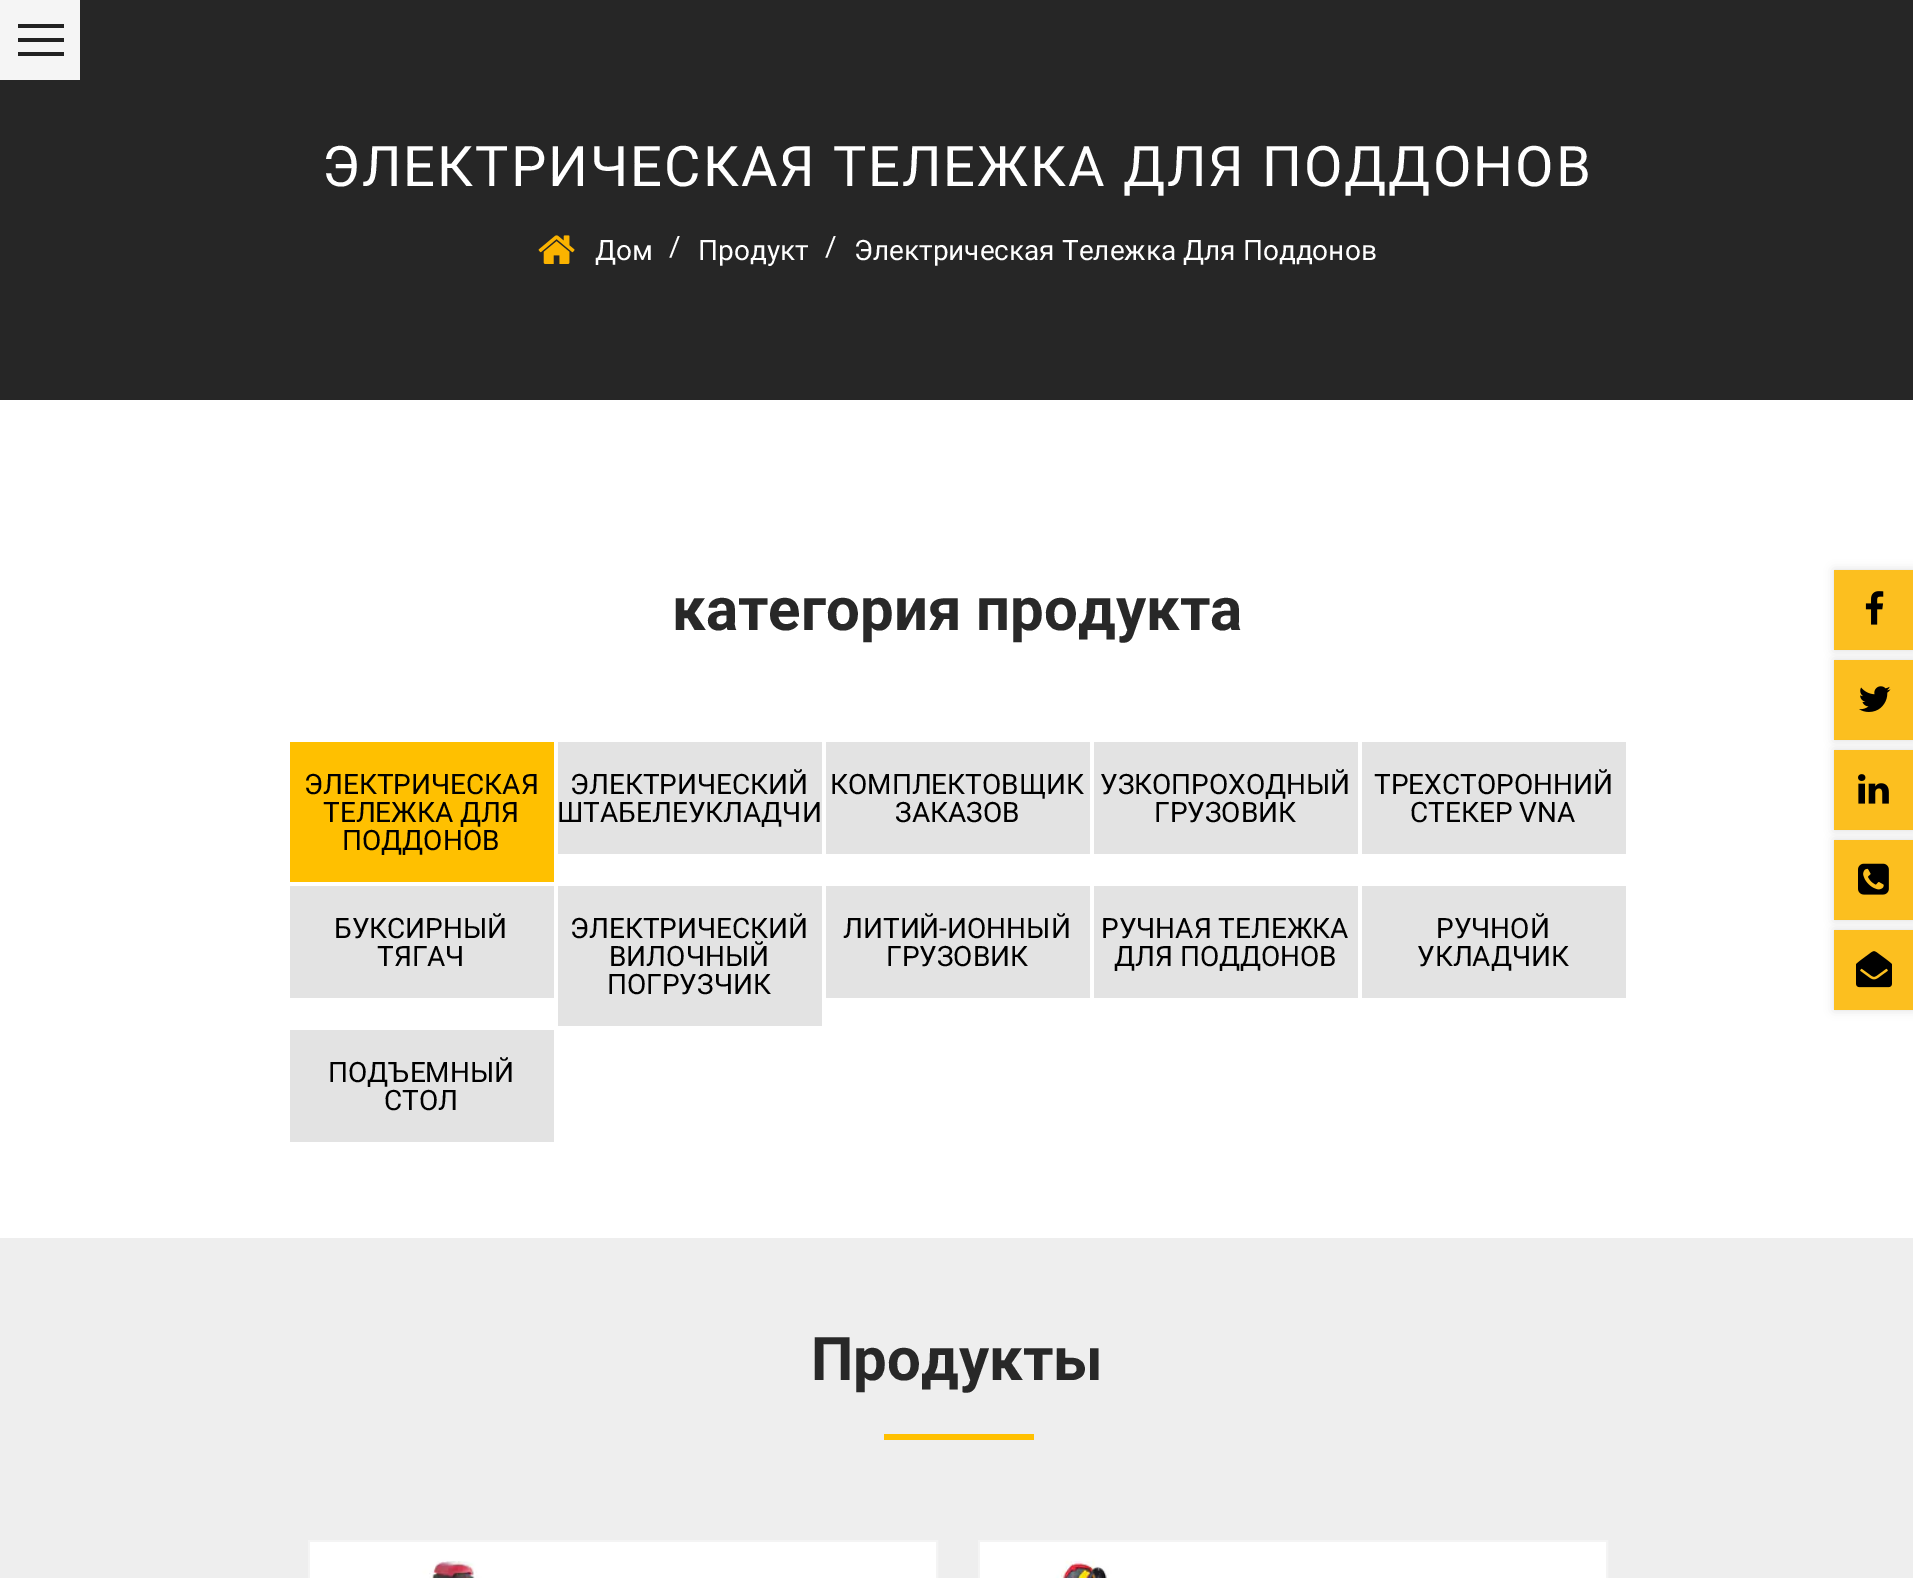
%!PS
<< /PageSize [1913 1578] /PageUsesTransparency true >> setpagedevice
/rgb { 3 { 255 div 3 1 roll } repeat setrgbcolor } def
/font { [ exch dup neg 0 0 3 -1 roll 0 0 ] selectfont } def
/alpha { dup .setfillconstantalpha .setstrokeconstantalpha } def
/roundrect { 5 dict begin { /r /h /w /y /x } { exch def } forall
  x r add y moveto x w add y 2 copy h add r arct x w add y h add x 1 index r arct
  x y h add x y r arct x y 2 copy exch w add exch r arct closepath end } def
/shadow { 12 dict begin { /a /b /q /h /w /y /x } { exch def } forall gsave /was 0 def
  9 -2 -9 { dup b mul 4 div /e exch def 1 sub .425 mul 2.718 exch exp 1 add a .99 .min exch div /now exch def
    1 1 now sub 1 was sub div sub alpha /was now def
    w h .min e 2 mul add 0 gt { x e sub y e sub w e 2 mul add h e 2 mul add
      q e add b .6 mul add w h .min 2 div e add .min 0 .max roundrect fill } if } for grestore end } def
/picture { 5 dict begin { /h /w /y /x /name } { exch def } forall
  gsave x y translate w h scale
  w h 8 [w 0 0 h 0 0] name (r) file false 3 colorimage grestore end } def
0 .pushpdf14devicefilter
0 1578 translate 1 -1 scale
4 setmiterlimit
255 255 255 rgb
0 0 1913 1578 rectfill
[
  [0 0 1913 400 38 38 38]
  [0 0 80 80 245 245 245]
  [18 24 46 4 34 34 34]
  [18 38 46 4 34 34 34]
  [18 52 46 4 34 34 34]
] { aload pop rgb rectfill } forall
(img/1.rgb) 538 235 37 29 picture
[
  [290 742 264 140 255 192 0]
  [558 742 264 112 227 227 227]
  [826 742 264 112 227 227 227]
  [1094 742 264 112 227 227 227]
  [1362 742 264 112 227 227 227]
  [290 886 264 112 227 227 227]
  [558 886 264 140 227 227 227]
  [826 886 264 112 227 227 227]
  [1094 886 264 112 227 227 227]
  [1362 886 264 112 227 227 227]
  [290 1030 264 112 227 227 227]
  [0 1238 1913 340 238 238 238]
  [884 1434 150 6 255 192 0]
] { aload pop rgb rectfill } forall
244 244 244 rgb
2 setlinewidth
309 1541 628 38 rectstroke
(img/2.rgb) 310 1542 626 36 picture
979 1541 628 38 rectstroke
(img/3.rgb) 980 1542 626 36 picture
0 0 0 rgb
1834 570 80 80 0 5 0.13 shadow
252 191 31 rgb
1834 570 79 80 rectfill
(img/4.rgb) 1865 591 19 34 picture
0 0 0 rgb
1834 660 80 80 0 5 0.13 shadow
252 191 31 rgb
1834 660 79 80 rectfill
(img/5.rgb) 1859 686 32 26 picture
0 0 0 rgb
1834 750 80 80 0 5 0.13 shadow
252 191 31 rgb
1834 750 79 80 rectfill
(img/6.rgb) 1858 774 31 30 picture
0 0 0 rgb
1834 840 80 80 0 5 0.13 shadow
252 191 31 rgb
1834 840 79 80 rectfill
(img/7.rgb) 1858 863 31 32 picture
0 0 0 rgb
1834 930 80 80 0 5 0.13 shadow
252 191 31 rgb
1834 930 79 80 rectfill
(img/8.rgb) 1856 951 36 37 picture
/Roboto-Regular 56 font
255 255 255 rgb
322 186 moveto 2 0 (ЭЛЕКТРИЧЕСКАЯ ТЕЛЕЖКА ДЛЯ ПОДДОНОВ) ashow
/Roboto-Regular 28 font
[
  [(Дом) 595 260]
  [(/) 669 256]
  [(Продукт) 698 260]
  [(/) 825 256]
  [(Электрическая Тележка Для Поддонов) 854 260]
] { aload pop moveto show } forall
/Roboto-Bold 60 font
40 40 40 rgb
672 630 moveto (категория продукта) show
/Roboto-Regular 28 font
0 0 0 rgb
[
  [(ЭЛЕКТРИЧЕСКАЯ) 304 794]
  [(ТЕЛЕЖКА ДЛЯ) 323 822]
  [(ПОДДОНОВ) 342 850]
  [(ЭЛЕКТРИЧЕСКИЙ) 570 794]
  [(ШТАБЕЛЕУКЛАДЧИ) 557 822]
  [(КОМПЛЕКТОВЩИК) 830 794]
  [(ЗАКАЗОВ) 895 822]
  [(УЗКОПРОХОДНЫЙ) 1100 794]
  [(ГРУЗОВИК) 1154 822]
  [(ТРЕХСТОРОННИЙ) 1374 794]
  [(СТЕКЕР VNA) 1410 822]
  [(БУКСИРНЫЙ) 334 938]
  [(ТЯГАЧ) 377 966]
  [(ЭЛЕКТРИЧЕСКИЙ) 570 938]
  [(ВИЛОЧНЫЙ) 609 966]
  [(ПОГРУЗЧИК) 607 994]
  [(ЛИТИЙ-ИОННЫЙ) 843 938]
  [(ГРУЗОВИК) 886 966]
  [(РУЧНАЯ ТЕЛЕЖКА) 1101 938]
  [(ДЛЯ ПОДДОНОВ) 1114 966]
  [(РУЧНОЙ) 1436 938]
  [(УКЛАДЧИК) 1417 966]
  [(ПОДЪЕМНЫЙ) 328 1082]
  [(СТОЛ) 384 1110]
] { aload pop moveto show } forall
/Roboto-Bold 60 font
40 40 40 rgb
811 1380 moveto (Продукты) show
.poppdf14devicefilter showpage
